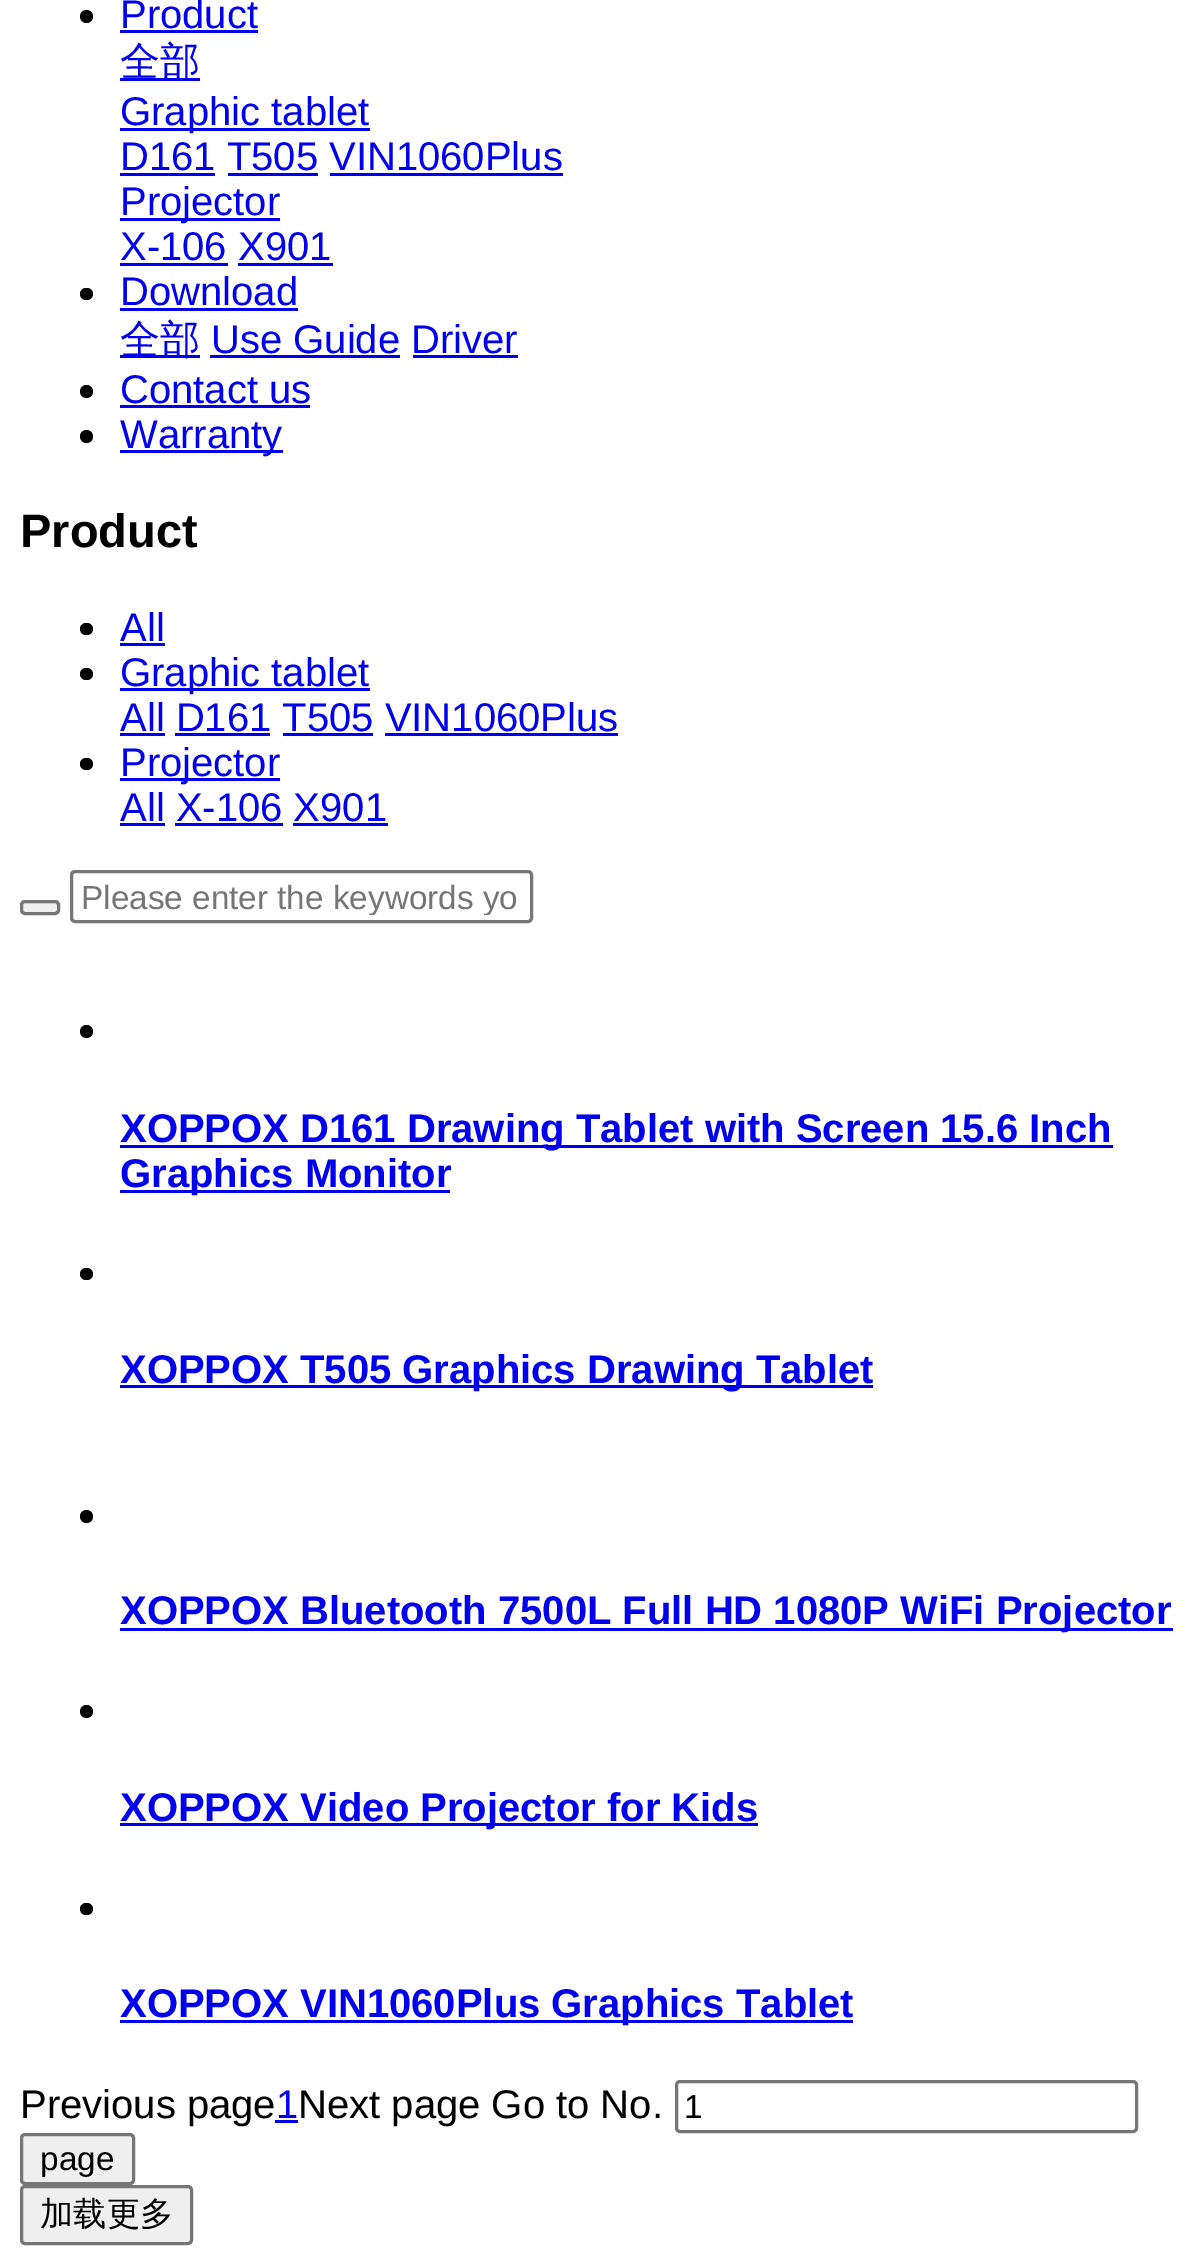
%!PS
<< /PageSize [1193 2265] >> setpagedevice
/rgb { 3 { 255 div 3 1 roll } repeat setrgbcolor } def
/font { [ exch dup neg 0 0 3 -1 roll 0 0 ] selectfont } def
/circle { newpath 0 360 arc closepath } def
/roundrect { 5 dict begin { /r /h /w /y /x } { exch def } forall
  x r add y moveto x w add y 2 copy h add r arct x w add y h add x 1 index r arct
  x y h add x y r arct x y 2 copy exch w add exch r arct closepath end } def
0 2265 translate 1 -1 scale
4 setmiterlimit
255 255 255 rgb
0 0 1193 2265 rectfill
0 0 0 rgb
86.5 16.5 6.5 circle fill
[
  [120 30 138 3 0 0 238]
  [120 78 80 3 0 0 238]
  [120 128 250 3 0 0 238]
  [120 173 95 3 0 0 238]
  [228 173 90 3 0 0 238]
  [330 173 233 3 0 0 238]
  [120 218 160 3 0 0 238]
  [120 263 108 3 0 0 238]
  [238 263 95 3 0 0 238]
] { aload pop rgb rectfill } forall
0 0 0 rgb
80 288 13 12 6 roundrect fill
[
  [120 308 178 3 0 0 238]
  [120 355 80 3 0 0 238]
  [210 355 190 3 0 0 238]
  [413 355 105 3 0 0 238]
] { aload pop rgb rectfill } forall
0 0 0 rgb
86.5 391.5 6.5 circle fill
0 0 238 rgb
120 405 190 3 rectfill
0 0 0 rgb
86.5 436.5 6.5 circle fill
0 0 238 rgb
120 450 163 3 rectfill
0 0 0 rgb
80 623 13 12 6 roundrect fill
0 0 238 rgb
120 643 45 3 rectfill
0 0 0 rgb
80 668 13 12 6 roundrect fill
[
  [120 688 250 3 0 0 238]
  [120 733 45 3 0 0 238]
  [175 733 95 3 0 0 238]
  [283 733 90 3 0 0 238]
  [385 733 233 3 0 0 238]
] { aload pop rgb rectfill } forall
0 0 0 rgb
80 758 13 12 6 roundrect fill
[
  [120 778 160 3 0 0 238]
  [120 823 45 3 0 0 238]
  [175 823 108 3 0 0 238]
  [293 823 95 3 0 0 238]
] { aload pop rgb rectfill } forall
239 239 239 rgb
21.5 901.5 37 12 3.5 roundrect gsave fill grestore
118 118 118 rgb
3 setlinewidth
stroke
71.5 871.5 460 50 3.5 roundrect stroke
0 0 0 rgb
86.5 1031.5 6.5 circle fill
0 0 238 rgb
120 1145 993 3 rectfill
120 1190 330 3 rectfill
0 0 0 rgb
80 1268 13 12 6 roundrect fill
0 0 238 rgb
120 1385 753 3 rectfill
0 0 0 rgb
86.5 1516.5 6.5 circle fill
0 0 238 rgb
120 1628 1053 3 rectfill
0 0 0 rgb
86.5 1711.5 6.5 circle fill
0 0 238 rgb
120 1823 638 3 rectfill
0 0 0 rgb
80 1903 13 12 6 roundrect fill
0 0 238 rgb
120 2020 733 3 rectfill
275 2120 23 3 rectfill
118 118 118 rgb
676.5 2081.5 460 50 3.5 roundrect stroke
239 239 239 rgb
21.5 2134.5 112 49 3.5 roundrect gsave fill grestore
118 118 118 rgb
stroke
239 239 239 rgb
21.5 2186.5 170 57 3.5 roundrect gsave fill grestore
118 118 118 rgb
stroke
/LiberationSans-Regular 40 font
0 0 238 rgb
120 28 moveto (Product) show
/WenQuanYiZenHei-Medium 40 font
120 75 moveto (全部) show
/LiberationSans-Regular 40 font
[
  [(Graphic tablet) 120 125]
  [(D161 T505 VIN1060Plus) 120 170]
  [(Projector) 120 215]
  [(X-106 X901) 120 260]
  [(Download) 120 305]
] { aload pop moveto show } forall
/WenQuanYiZenHei-Medium 40 font
120 353 moveto (全部) show
/LiberationSans-Regular 40 font
[
  [(Use Guide Driver) 211 353]
  [(Contact us) 120 403]
  [(Warranty) 120 448]
] { aload pop moveto show } forall
/LiberationSans-Bold 47 font
0 0 0 rgb
20 547 moveto (Product) show
/LiberationSans-Regular 40 font
0 0 238 rgb
[
  [(All) 120 641]
  [(Graphic tablet) 120 686]
  [(All D161 T505 VIN1060Plus) 120 731]
  [(Projector) 120 776]
  [(All X-106 X901) 120 821]
] { aload pop moveto show } forall
gsave
80 878 443 37 rectclip
/LiberationSans-Regular 33.3 font
117 117 117 rgb
81 909 moveto (Please enter the keywords yo) show
grestore
/LiberationSans-Bold 40 font
[
  [(XOPPOX D161 Drawing Tablet with Screen 15.6 Inch) 120 1142]
  [(Graphics Monitor) 120 1187]
  [(XOPPOX T505 Graphics Drawing Tablet) 120 1383]
  [(XOPPOX Bluetooth 7500L Full HD 1080P WiFi Projector) 120 1624]
  [(XOPPOX Video Projector for Kids) 120 1821]
  [(XOPPOX VIN1060Plus Graphics Tablet) 120 2017]
] { aload pop moveto show } forall
/LiberationSans-Regular 40 font
0 0 0 rgb
20 2118 moveto (Previous page) show
0 0 238 rgb
276 2118 moveto (1) show
0 0 0 rgb
298 2118 moveto (Next page Go to No.) show
/LiberationSans-Regular 33.3 font
684 2118 moveto (1) show
40 2170 moveto (page) show
/WenQuanYiZenHei-Medium 33.3 font
40 2225 moveto (加载更多) show
showpage
